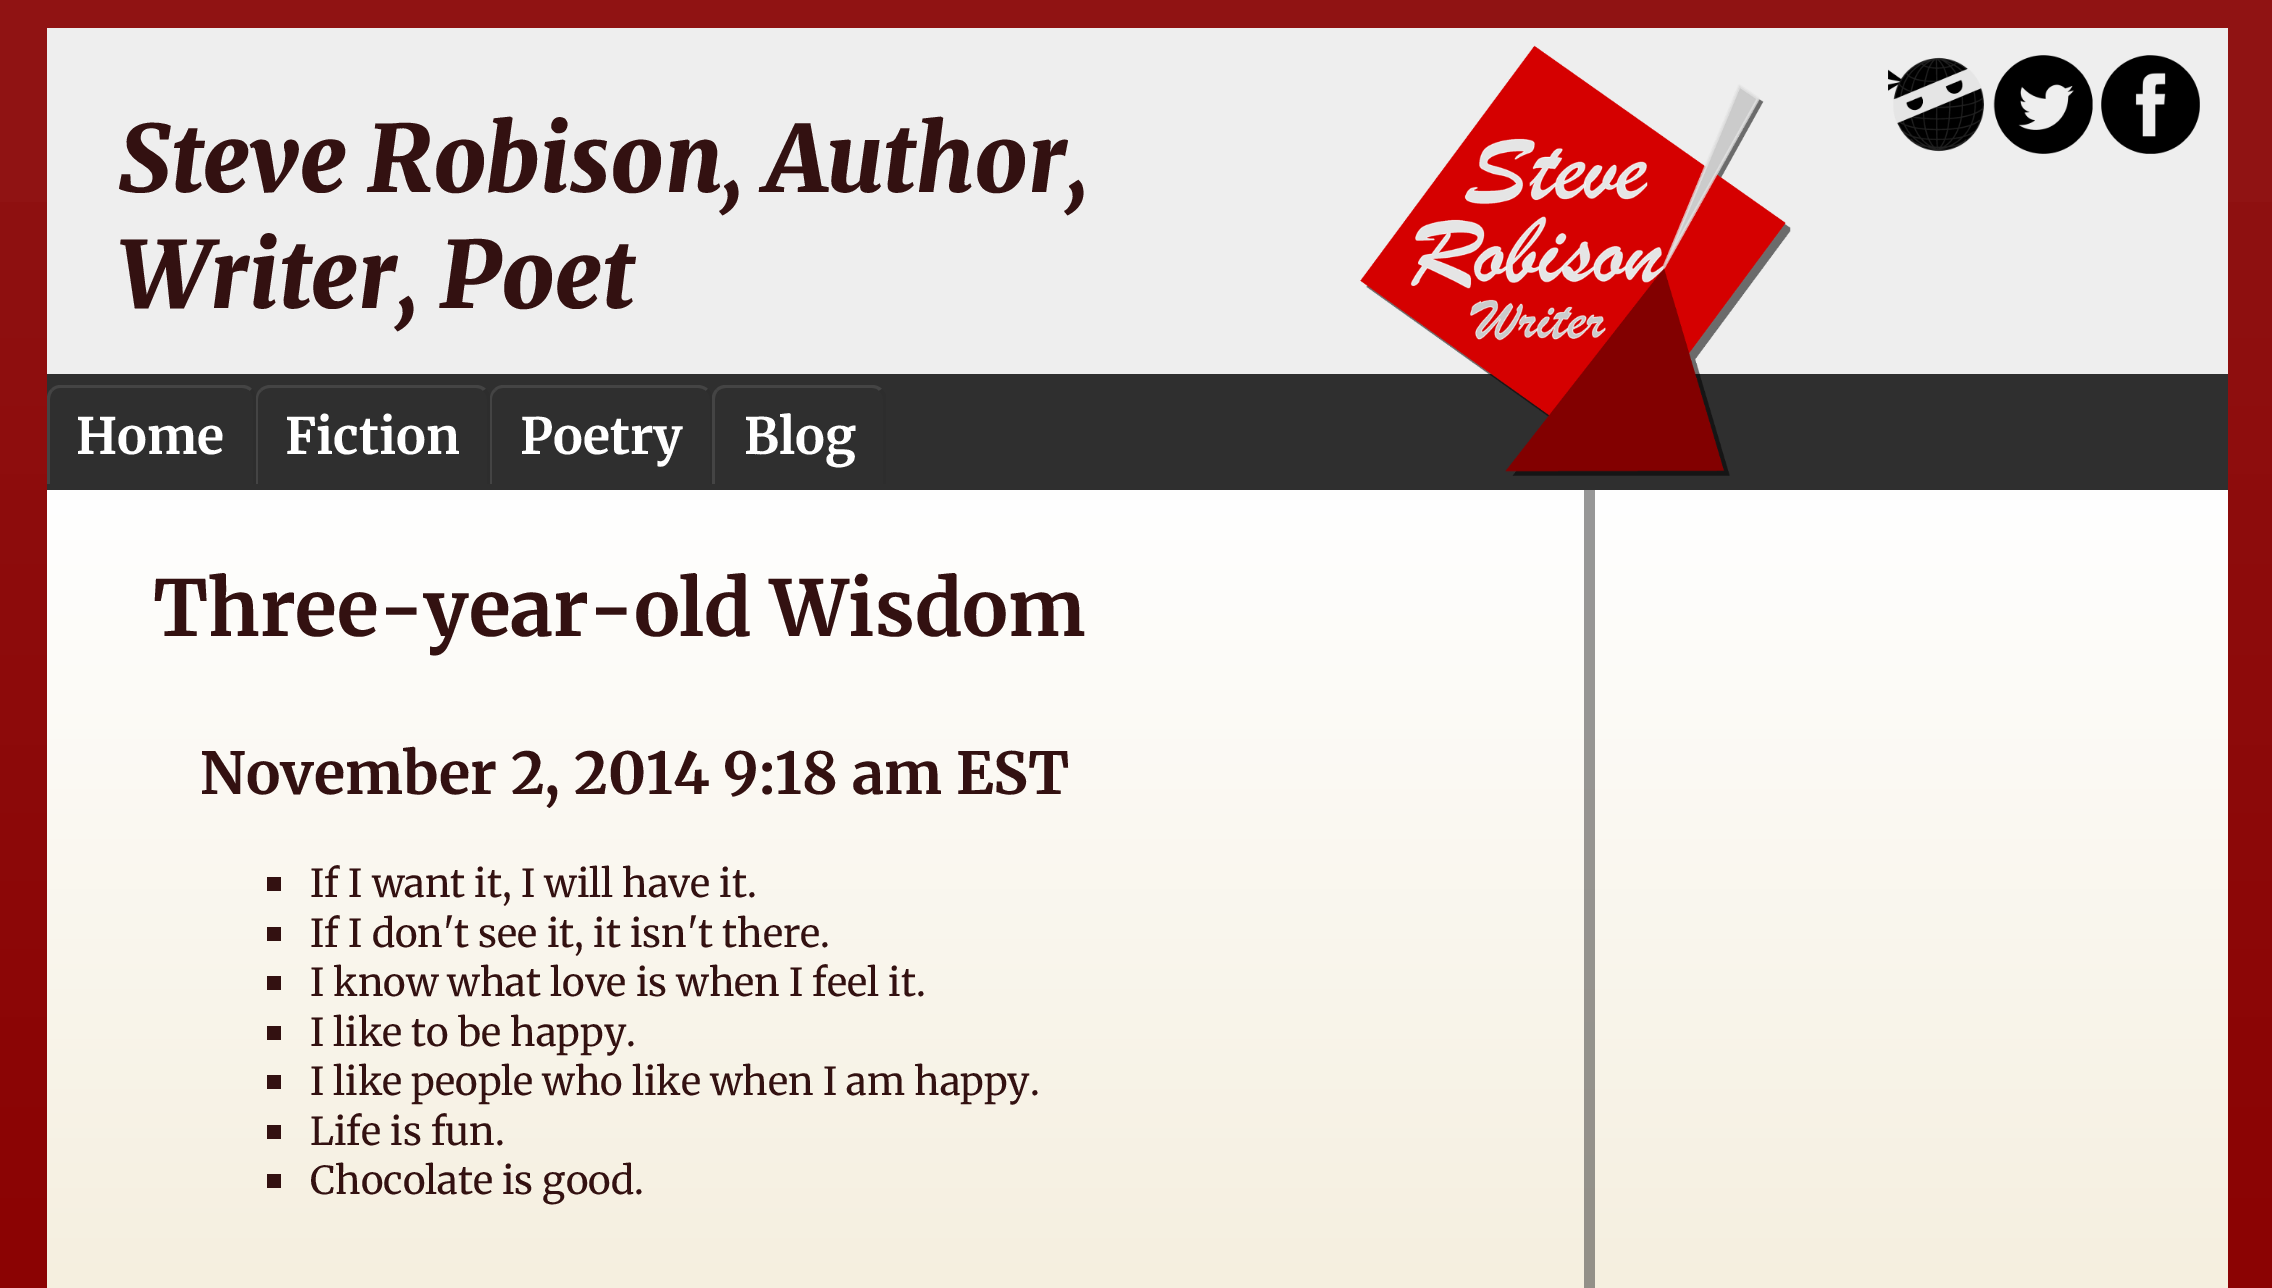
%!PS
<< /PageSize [2272 1288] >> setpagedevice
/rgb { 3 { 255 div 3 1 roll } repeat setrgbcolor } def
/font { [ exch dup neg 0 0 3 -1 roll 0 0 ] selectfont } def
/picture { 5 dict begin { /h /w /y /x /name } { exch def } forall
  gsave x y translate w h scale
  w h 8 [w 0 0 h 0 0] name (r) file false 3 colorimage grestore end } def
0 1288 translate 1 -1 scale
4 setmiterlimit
144 19 19 rgb
0 0 2272 1288 rectfill
gsave 0 202 moveto 2272 202 lineto 2272 1288 lineto 0 1288 lineto closepath clip newpath
<< /ShadingType 2 /ColorSpace /DeviceRGB /Coords [1137 0 1137 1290] /Extend [true true] /Function << /FunctionType 2 /Domain [0 1] /C0 [0.565 0.075 0.075] /C1 [0.545 0.012 0.012] /N 1 >> >> shfill grestore
238 238 238 rgb
47 28 2181 346 rectfill
47 47 47 rgb
47 374 2181 116 rectfill
(img/1.rgb) 1360 45 431 431 picture
(img/2.rgb) 1888 57 96 95 picture
(img/3.rgb) 1993 55 100 99 picture
(img/4.rgb) 2101 55 99 99 picture
68 68 68 rgb
60 385 moveto 242 385 lineto 246 385 249 386 252 389 curveto 250 391 lineto 248 389 245 388 242 388 curveto 60 388 lineto 57 388 55 389 53 391 curveto 51 389 lineto 53 387 56 385 60 385 curveto closepath fill
45 45 45 rgb
250 391 moveto 252 389 lineto 254 391 255 393 256 396 curveto 256 484 lineto 253 484 lineto 253 399 lineto 253 396 252 393 250 391 curveto closepath fill
68 68 68 rgb
47 484 moveto 50 484 lineto 50 399 lineto 50 396 51 393 53 391 curveto 51 389 lineto 48 392 47 395 47 399 curveto closepath fill
270 385 moveto 476 385 lineto 479 385 483 386 486 389 curveto 483 391 lineto 482 389 479 388 476 388 curveto 270 388 lineto 267 388 264 389 262 391 curveto 260 389 lineto 262 387 266 385 270 385 curveto closepath fill
45 45 45 rgb
483 391 moveto 486 389 lineto 487 391 489 393 490 395 curveto 490 484 lineto 487 484 lineto 487 399 lineto 487 396 486 393 483 391 curveto closepath fill
68 68 68 rgb
256 484 moveto 258 484 lineto 258 399 lineto 258 396 259 393 262 391 curveto 260 389 lineto 257 392 256 395 256 399 curveto closepath fill
503 385 moveto 698 385 lineto 702 385 706 387 708 389 curveto 706 391 lineto 704 389 701 388 698 388 curveto 503 388 lineto 500 388 497 389 496 391 curveto 494 389 lineto 496 387 499 385 503 385 curveto closepath fill
45 45 45 rgb
710 484 moveto 712 484 lineto 712 399 lineto 712 395 711 392 708 389 curveto 706 391 lineto 709 393 710 396 710 399 curveto closepath fill
68 68 68 rgb
490 484 moveto 492 484 lineto 492 399 lineto 492 396 493 393 496 391 curveto 494 389 lineto 491 392 490 395 490 399 curveto closepath fill
726 385 moveto 722 385 719 386 716 389 curveto 718 391 lineto 720 389 723 388 726 388 curveto 872 388 lineto 875 388 878 389 879 391 curveto 882 389 lineto 879 386 875 385 872 385 curveto closepath fill
45 45 45 rgb
879 391 moveto 882 389 lineto 883 391 885 393 886 395 curveto 886 484 lineto 883 484 lineto 883 399 lineto 883 396 882 393 879 391 curveto closepath fill
68 68 68 rgb
712 484 moveto 712 396 lineto 713 393 714 391 716 389 curveto 718 391 lineto 716 393 715 396 715 399 curveto 715 484 lineto closepath fill
gsave 47 490 moveto 2228 490 lineto 2228 1288 lineto 47 1288 lineto closepath clip newpath
<< /ShadingType 2 /ColorSpace /DeviceRGB /Coords [1137 489 1137 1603] /Extend [true true] /Function << /FunctionType 2 /Domain [0 1] /C0 [1 1 1] /C1 [0.945 0.914 0.824] /N 1 >> >> shfill grestore
gsave 1584 490 moveto 1595 490 lineto 1595 1288 lineto 1584 1288 lineto closepath clip newpath
<< /ShadingType 2 /ColorSpace /DeviceRGB /Coords [1137 489 1137 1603] /Extend [true true] /Function << /FunctionType 2 /Domain [0 1] /C0 [0.596 0.596 0.596] /C1 [0.569 0.553 0.506] /N 1 >> >> shfill grestore
[
  [267 877 14 14 51 17 17]
  [267 927 14 14 51 17 17]
  [267 976 14 14 51 17 17]
  [267 1026 14 14 51 17 17]
  [267 1075 14 14 51 17 17]
  [267 1125 14 14 51 17 17]
  [267 1174 14 14 51 17 17]
] { aload pop rgb rectfill } forall
/Merriweather-BlackItalic 92.4 font
119 192 moveto (Steve Robison, Author,) show
119 308 moveto (Writer, Poet) show
/Merriweather-Bold 50 font
255 255 255 rgb
[
  [(Home) 76 454]
  [(Fiction) 285 454]
  [(Poetry) 520 454]
  [(Blog) 744 454]
] { aload pop moveto show } forall
/Merriweather-Bold 77 font
51 17 17 rgb
153 636 moveto (Three-year-old Wisdom) show
/Merriweather-Bold 57.75 font
200 794 moveto (November 2, 2014 9:18 am EST) show
/Merriweather-Regular 38.5 font
[
  [(If I want it, I will have it.) 310 897]
  [(If I don't see it, it isn't there.) 310 947]
  [(I know what love is when I feel it.) 310 996]
  [(I like to be happy.) 310 1046]
  [(I like people who like when I am happy.) 310 1095]
  [(Life is fun.) 310 1145]
  [(Chocolate is good.) 310 1194]
] { aload pop moveto show } forall
showpage
